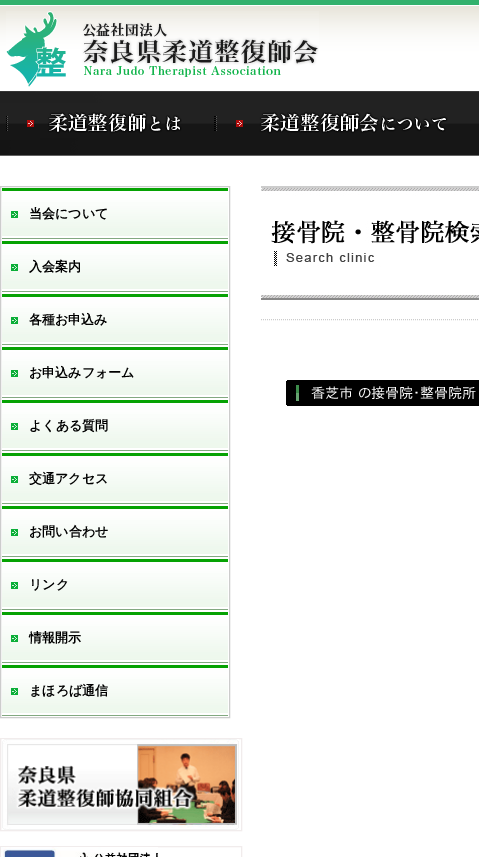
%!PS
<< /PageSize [479 857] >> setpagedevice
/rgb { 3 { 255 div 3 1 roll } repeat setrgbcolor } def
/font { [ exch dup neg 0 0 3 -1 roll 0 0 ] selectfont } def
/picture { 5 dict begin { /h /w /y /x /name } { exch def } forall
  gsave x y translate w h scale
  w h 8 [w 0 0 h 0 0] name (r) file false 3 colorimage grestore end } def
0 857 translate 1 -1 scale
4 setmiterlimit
255 255 255 rgb
0 0 479 857 rectfill
(img/1.rgb) 0 0 479 91 picture
(img/2.rgb) 6 11 313 76 picture
(img/3.rgb) 0 91 215 65 picture
(img/4.rgb) 215 91 264 65 picture
204 204 204 rgb
0.5 186.5 229 531 rectstroke
(img/5.rgb) 2 188 226 51 picture
(img/5.rgb) 2 241 226 51 picture
(img/5.rgb) 2 294 226 51 picture
(img/5.rgb) 2 347 226 51 picture
(img/5.rgb) 2 400 226 51 picture
(img/5.rgb) 2 453 226 51 picture
(img/5.rgb) 2 506 226 51 picture
(img/5.rgb) 2 559 226 51 picture
(img/5.rgb) 2 612 226 51 picture
(img/5.rgb) 2 665 226 51 picture
241 236 236 rgb
0.5 738.5 241 92 rectstroke
(img/6.rgb) 2 739 237 91 picture
0.5 846.5 241 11 rectstroke
(img/7.rgb) 1 847 157 10 picture
204 204 204 rgb
261 186 218 2 rectfill
136 136 136 rgb
261 298 218 2 rectfill
(img/8.rgb) 261 188 218 110 picture
204 204 204 rgb
[1 1] 0 setdash
261 319.5 moveto 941 319.5 lineto stroke
(img/9.rgb) 286 380 193 26 picture
/WenQuanYiZenHei-Bold 13 font
0 0 0 rgb
[
  [(当会について) 29 218]
  [(入会案内) 29 271]
  [(各種お申込み) 29 324]
  [(お申込みフォーム) 29 377]
  [(よくある質問) 29 430]
  [(交通アクセス) 29 483]
  [(お問い合わせ) 29 536]
  [(リンク) 29 589]
  [(情報開示) 29 642]
  [(まほろば通信) 29 695]
] { aload pop moveto show } forall
/IPAPGothic-Regular 14 font
255 255 255 rgb
311 398 moveto 1 0 32 (香芝市 の接骨院･整骨院所) widthshow
showpage
